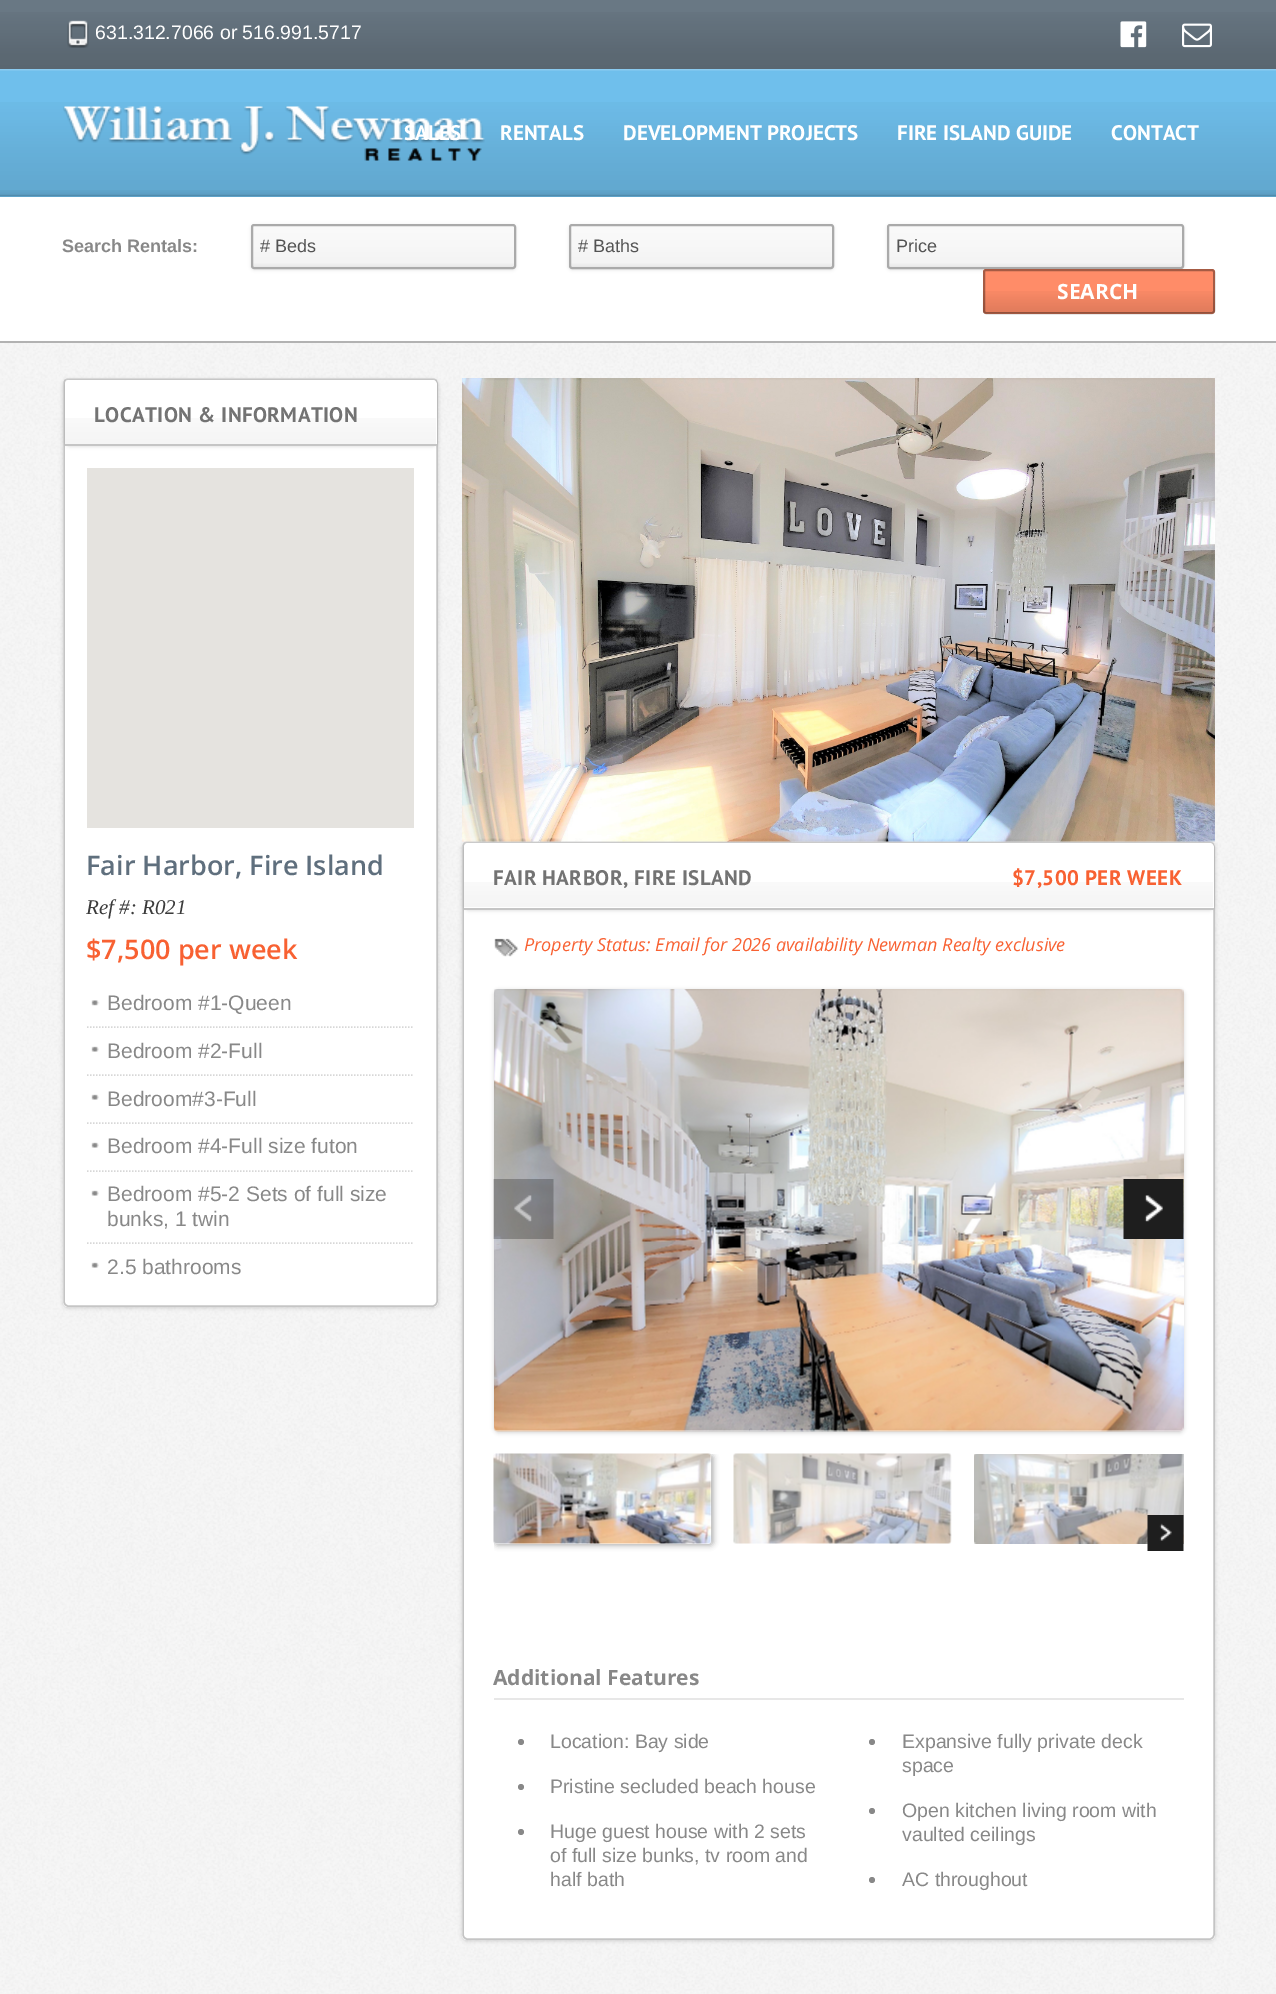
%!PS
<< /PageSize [1276 1994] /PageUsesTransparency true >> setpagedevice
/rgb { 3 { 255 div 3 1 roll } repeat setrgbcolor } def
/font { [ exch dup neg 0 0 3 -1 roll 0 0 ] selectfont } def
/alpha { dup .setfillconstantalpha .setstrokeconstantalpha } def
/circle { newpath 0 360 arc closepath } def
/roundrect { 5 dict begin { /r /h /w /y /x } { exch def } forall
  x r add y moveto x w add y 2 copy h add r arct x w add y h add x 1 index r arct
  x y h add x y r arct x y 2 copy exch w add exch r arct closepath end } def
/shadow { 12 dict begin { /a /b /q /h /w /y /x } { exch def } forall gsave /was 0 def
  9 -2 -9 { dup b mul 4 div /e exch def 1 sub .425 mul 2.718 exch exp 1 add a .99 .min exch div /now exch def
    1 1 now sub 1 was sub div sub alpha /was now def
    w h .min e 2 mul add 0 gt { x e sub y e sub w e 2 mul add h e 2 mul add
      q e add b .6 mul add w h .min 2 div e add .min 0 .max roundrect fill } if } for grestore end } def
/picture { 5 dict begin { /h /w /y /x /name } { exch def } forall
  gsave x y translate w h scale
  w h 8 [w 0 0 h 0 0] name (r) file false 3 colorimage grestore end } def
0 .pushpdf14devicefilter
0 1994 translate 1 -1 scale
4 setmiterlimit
255 255 255 rgb
0 0 1276 1994 rectfill
(img/1.rgb) 0 343 1276 1651 picture
105 120 132 rgb
0 0 1276 69 rectfill
(img/2.rgb) 0 12 1276 57 picture
(img/3.rgb) 67 20 22 28 picture
(img/4.rgb) 1120 21 27 27 picture
(img/5.rgb) 1182 23 30 25 picture
111 191 236 rgb
0 69 1276 128 rectfill
(img/6.rgb) 0 102 1276 95 picture
(img/7.rgb) 0 69 1276 2 picture
(img/8.rgb) 63 106 422 55 picture
(img/9.rgb) 0 190 1276 7 picture
178 178 178 rgb
0 341 1276 2 rectfill
0 0 0 rgb
251 225 265 45 3 1.5 0.1 shadow
gsave 253 226 moveto 514 226 lineto 514 267 lineto 253 267 lineto closepath clip newpath
<< /ShadingType 2 /ColorSpace /DeviceRGB /Coords [383 225 383 267] /Extend [true true] /Function << /FunctionType 3 /Domain [0 1] /Functions [<< /FunctionType 2 /Domain [0 1] /C0 [0.98 0.98 0.98] /C1 [0.957 0.957 0.957] /N 1 >> << /FunctionType 2 /Domain [0 1] /C0 [0.957 0.957 0.957] /C1 [0.91 0.91 0.91] /N 1 >>] /Bounds [0.9] /Encode [0 1 0 1] >> >> shfill grestore
170 170 170 rgb
2 setlinewidth
252 225 263 43 2 roundrect stroke
0 0 0 rgb
569 225 265 45 3 1.5 0.1 shadow
gsave 571 226 moveto 832 226 lineto 832 267 lineto 571 267 lineto closepath clip newpath
<< /ShadingType 2 /ColorSpace /DeviceRGB /Coords [701 225 701 267] /Extend [true true] /Function << /FunctionType 3 /Domain [0 1] /Functions [<< /FunctionType 2 /Domain [0 1] /C0 [0.98 0.98 0.98] /C1 [0.957 0.957 0.957] /N 1 >> << /FunctionType 2 /Domain [0 1] /C0 [0.957 0.957 0.957] /C1 [0.91 0.91 0.91] /N 1 >>] /Bounds [0.9] /Encode [0 1 0 1] >> >> shfill grestore
170 170 170 rgb
570 225 263 43 2 roundrect stroke
0 0 0 rgb
887 225 297 45 3 1.5 0.1 shadow
gsave 889 226 moveto 1182 226 lineto 1182 267 lineto 889 267 lineto closepath clip newpath
<< /ShadingType 2 /ColorSpace /DeviceRGB /Coords [1035 225 1035 267] /Extend [true true] /Function << /FunctionType 3 /Domain [0 1] /Functions [<< /FunctionType 2 /Domain [0 1] /C0 [0.98 0.98 0.98] /C1 [0.957 0.957 0.957] /N 1 >> << /FunctionType 2 /Domain [0 1] /C0 [0.957 0.957 0.957] /C1 [0.91 0.91 0.91] /N 1 >>] /Bounds [0.9] /Encode [0 1 0 1] >> >> shfill grestore
170 170 170 rgb
888 225 295 43 2 roundrect stroke
255 140 104 rgb
983 269 232 45 3 roundrect fill
(img/10.rgb) 982 291 233 23 picture
0.35 alpha
0 0 0 rgb
984 270 230 43 2 roundrect stroke
1 alpha
63 380 375 928 5 2 0.15 shadow
255 255 255 rgb
63 378 375 929 5 roundrect fill
204 204 204 rgb
1.5 setlinewidth
65 380 moveto 67.5 379 lineto 433.5 379 lineto 436 380 lineto stroke
196 196 196 rgb
436 380 moveto 437 382.5 lineto 437 1302 lineto 436 1304.5 lineto stroke
197 197 197 rgb
436 1304.5 moveto 433.5 1306 lineto 67.5 1306 lineto 65 1304.5 lineto stroke
196 196 196 rgb
65 1304.5 moveto 64 1302 lineto 64 382.5 lineto 65 380 lineto stroke
0 0 0 rgb
65 381 372 66 5 1.5 0.11 shadow
255 255 255 rgb
70 380 moveto 432 380 lineto 435 380 437 382 437 385 curveto 437 446 lineto 65 446 lineto 65 385 lineto 65 382 67 380 70 380 curveto closepath fill
(img/11.rgb) 65 418 371 26 picture
197 197 197 rgb
65 444 372 2 rectfill
229 227 223 rgb
87 468 327 360 rectfill
(img/12.rgb) 91 1000 9 6 picture
215 215 215 rgb
[1.5 1.5] 0 setdash
87 1027 moveto 414 1027 lineto stroke
(img/13.rgb) 91 1046 8 6 picture
87 1075 moveto 414 1075 lineto stroke
(img/13.rgb) 91 1094 8 6 picture
87 1123 moveto 414 1123 lineto stroke
(img/13.rgb) 91 1142 8 6 picture
87 1171 moveto 414 1171 lineto stroke
(img/13.rgb) 91 1190 8 6 picture
87 1243 moveto 414 1243 lineto stroke
(img/13.rgb) 91 1262 8 6 picture
0 0 0 rgb
462 843 753 1098 5 2 0.15 shadow
255 255 255 rgb
462 842 753 1098 5 roundrect fill
204 204 204 rgb
[] 0 setdash
464 843.5 moveto 466.5 842 lineto 1210.5 842 lineto 1213 843.5 lineto stroke
196 196 196 rgb
1213 843.5 moveto 1214 846 lineto 1214 1935 lineto 1213 1937.5 lineto stroke
197 197 197 rgb
1213 1937.5 moveto 1210.5 1939 lineto 466.5 1939 lineto 464 1937.5 lineto stroke
196 196 196 rgb
464 1937.5 moveto 463 1935 lineto 463 846 lineto 464 843.5 lineto stroke
0 0 0 rgb
464 845 750 66 5 1.5 0.11 shadow
(img/14.rgb) 462 378 753 464 picture
255 255 255 rgb
469 843 moveto 1209 843 lineto 1212 843 1214 845 1214 848 curveto 1214 909 lineto 464 909 lineto 464 848 lineto 464 845 466 843 469 843 curveto closepath fill
(img/15.rgb) 464 882 749 25 picture
197 197 197 rgb
464 908 750 2 rectfill
(img/16.rgb) 494 938 25 19 picture
0 0 0 rgb
494 990 690 443 5 2 0.15 shadow
(img/17.rgb) 494 989 690 443 picture
(img/18.rgb) 493 1179 61 60 picture
(img/19.rgb) 1123 1179 61 60 picture
gsave
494 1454 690 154 rectclip
495 1455 218 90 3 3 0.35 shadow
grestore
255 255 255 rgb
494 1454 217 90 3 roundrect fill
(img/20.rgb) 493 1453 219 91 picture
(img/21.rgb) 733 1453 219 91 picture
(img/22.rgb) 974 1454 210 90 picture
(img/23.rgb) 1147 1515 37 36 picture
231 231 231 rgb
494 1698 690 2 rectfill
136 136 136 rgb
521 1742 3 circle fill
872 1742 3 circle fill
521 1787 3 circle fill
521 1832 3 circle fill
872 1811 3 circle fill
872 1880 3 circle fill
/LiberationSans-Regular 19.5 font
255 255 255 rgb
95 39 moveto (631.312.7066 or 516.991.5717) show
/PTSans-Bold 21 font
[
  [(SALES) 404 140]
  [(RENTALS) 500 140]
  [(DEVELOPMENT PROJECTS) 623 140]
  [(FIRE ISLAND GUIDE) 897 140]
  [(CONTACT) 1111 140]
] { aload pop moveto show } forall
/LiberationSans-Bold 18 font
136 136 136 rgb
62 252 moveto (Search Rentals:) show
/LiberationSans-Regular 18 font
84 84 84 rgb
[
  [(# Beds) 260 252]
  [(# Baths) 578 252]
  [(Price) 896 252]
] { aload pop moveto show } forall
/OpenSans-Bold 21 font
255 255 255 rgb
1057 299 moveto (SEARCH) show
/PTSans-Bold 21 font
115 115 115 rgb
94 422 moveto 0.4 0 (LOCATION & INFORMATION) ashow
/OpenSans-SemiBold 27 font
95 111 125 rgb
86 875 moveto (Fair Harbor, Fire Island) show
/LiberationSerif-Italic 21 font
59 59 59 rgb
86 914 moveto (Ref #: R021) show
/OpenSans-SemiBold 27 font
248 97 50 rgb
86 959 moveto ($7,500 per week) show
/LiberationSans-Regular 21 font
136 136 136 rgb
[
  [(Bedroom #1-Queen) 107 1010]
  [(Bedroom #2-Full) 107 1058]
  [(Bedroom#3-Full) 107 1106]
  [(Bedroom #4-Full size futon) 107 1153]
  [(Bedroom #5-2 Sets of full size) 107 1201]
  [(bunks, 1 twin) 107 1226]
  [(2.5 bathrooms) 107 1274]
] { aload pop moveto show } forall
/PTSans-Bold 21 font
115 115 115 rgb
493 885 moveto 0.4 0 (FAIR HARBOR, FIRE ISLAND) ashow
248 97 50 rgb
1012 885 moveto 0.4 0 ($7,500 PER WEEK) ashow
/OpenSans-Italic 18 font
524 951 moveto (Property Status: Email for 2026 availability Newman Realty exclusive) show
/OpenSans-Bold 21 font
136 136 136 rgb
493 1685 moveto (Additional Features) show
/LiberationSans-Regular 19.5 font
[
  [(Location: Bay side) 550 1748]
  [(Expansive fully private deck) 902 1748]
  [(space) 902 1772]
  [(Pristine secluded beach house) 550 1793]
  [(Huge guest house with 2 sets) 550 1838]
  [(of full size bunks, tv room and) 550 1862]
  [(half bath) 550 1886]
  [(Open kitchen living room with) 902 1817]
  [(vaulted ceilings) 902 1841]
  [(AC throughout) 902 1886]
] { aload pop moveto show } forall
.poppdf14devicefilter showpage
